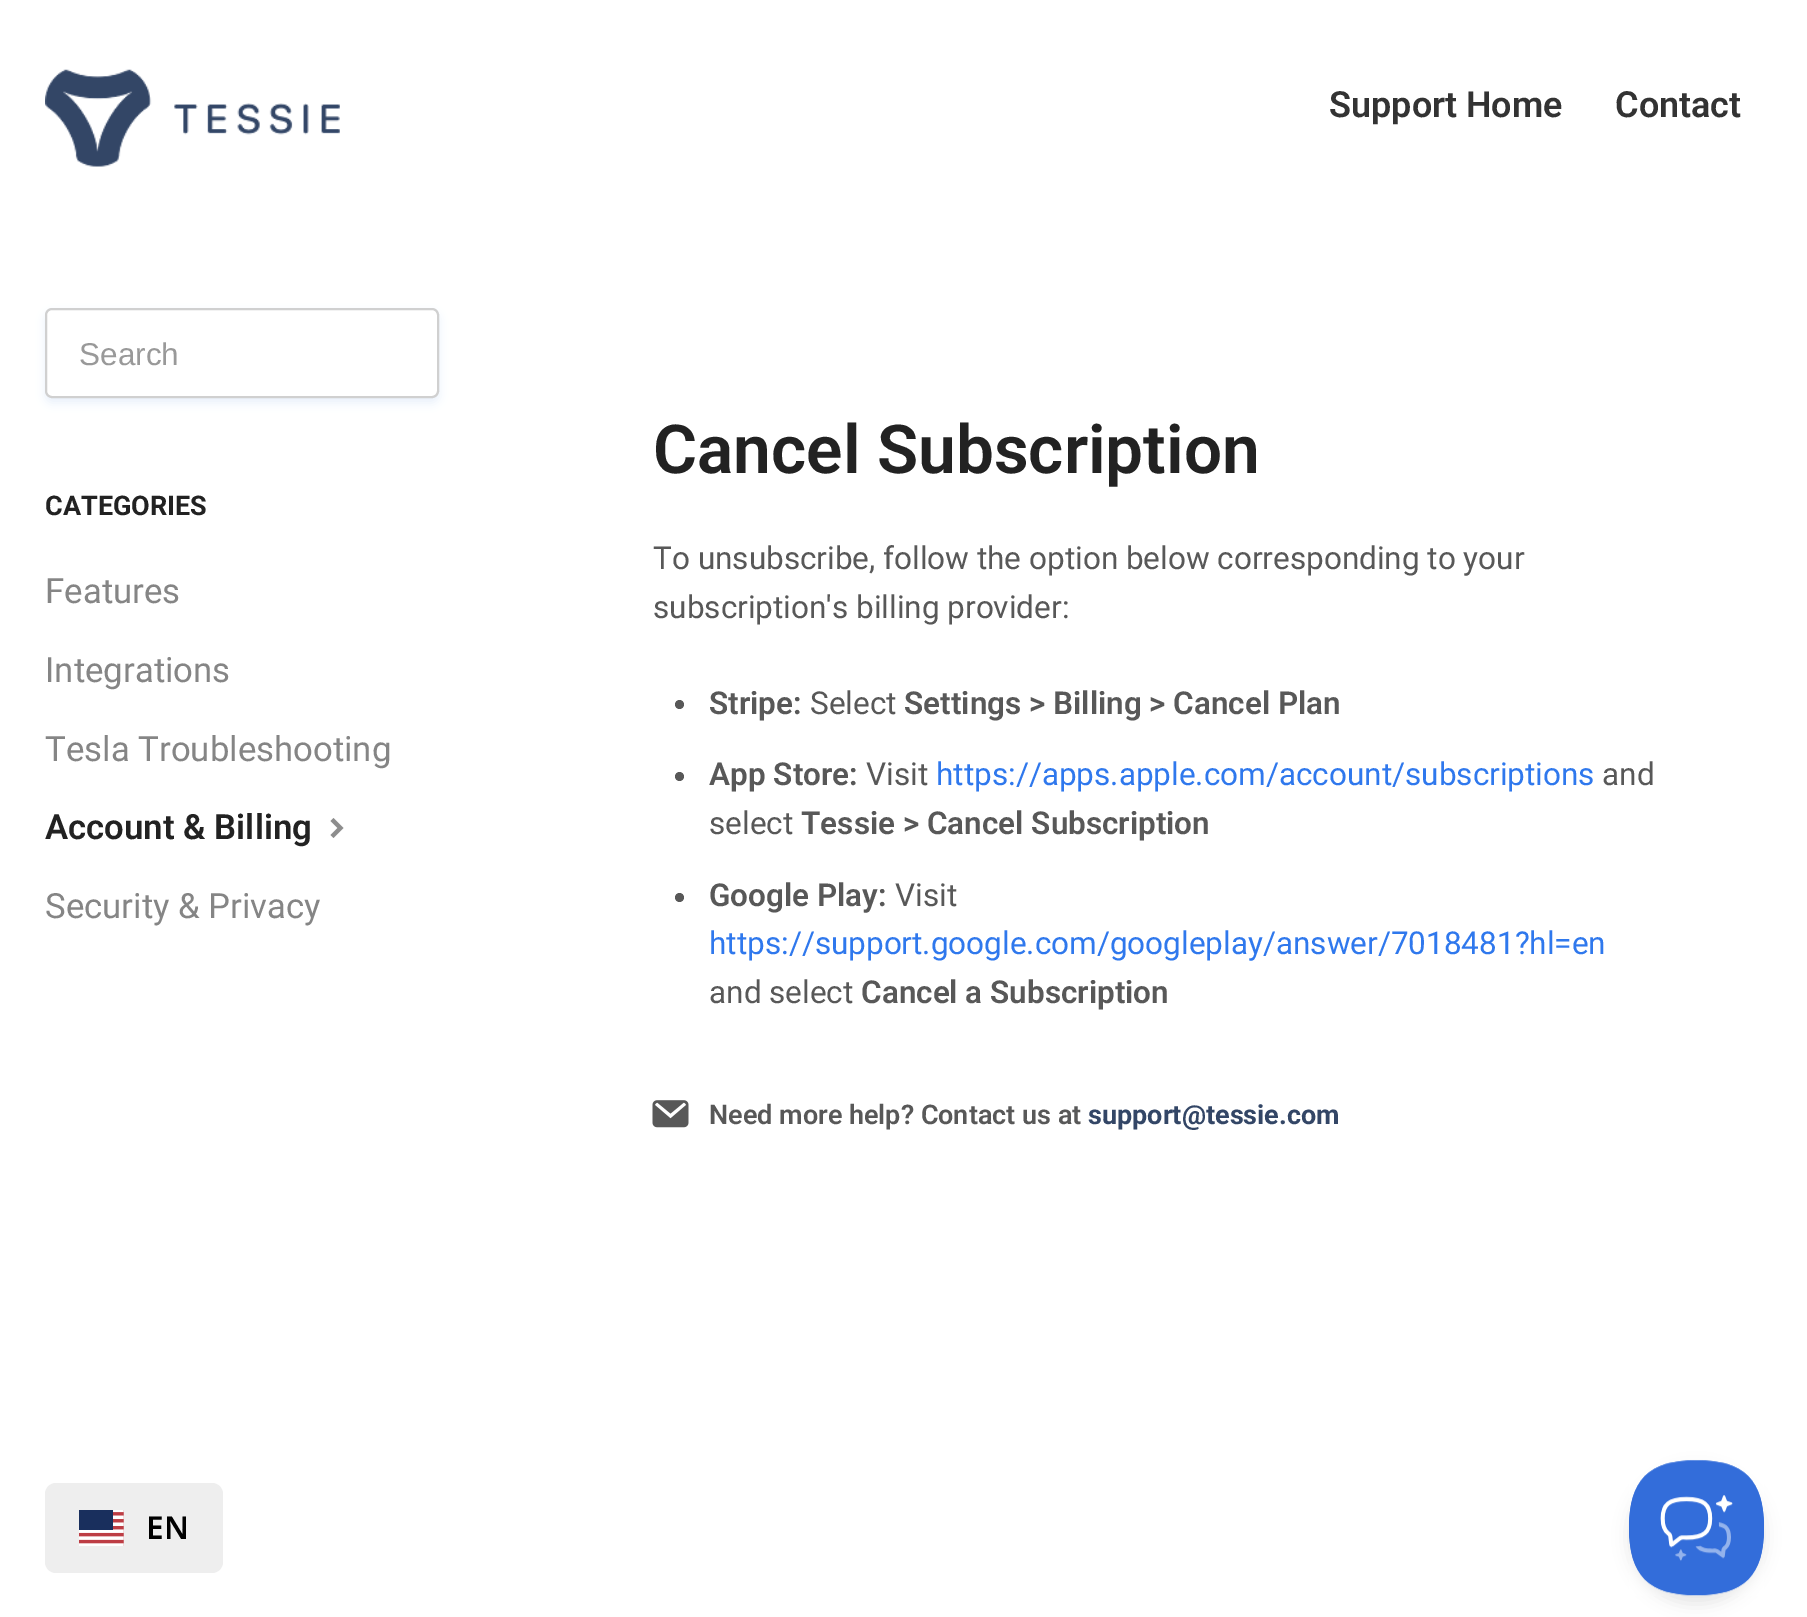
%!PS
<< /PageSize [1807 1617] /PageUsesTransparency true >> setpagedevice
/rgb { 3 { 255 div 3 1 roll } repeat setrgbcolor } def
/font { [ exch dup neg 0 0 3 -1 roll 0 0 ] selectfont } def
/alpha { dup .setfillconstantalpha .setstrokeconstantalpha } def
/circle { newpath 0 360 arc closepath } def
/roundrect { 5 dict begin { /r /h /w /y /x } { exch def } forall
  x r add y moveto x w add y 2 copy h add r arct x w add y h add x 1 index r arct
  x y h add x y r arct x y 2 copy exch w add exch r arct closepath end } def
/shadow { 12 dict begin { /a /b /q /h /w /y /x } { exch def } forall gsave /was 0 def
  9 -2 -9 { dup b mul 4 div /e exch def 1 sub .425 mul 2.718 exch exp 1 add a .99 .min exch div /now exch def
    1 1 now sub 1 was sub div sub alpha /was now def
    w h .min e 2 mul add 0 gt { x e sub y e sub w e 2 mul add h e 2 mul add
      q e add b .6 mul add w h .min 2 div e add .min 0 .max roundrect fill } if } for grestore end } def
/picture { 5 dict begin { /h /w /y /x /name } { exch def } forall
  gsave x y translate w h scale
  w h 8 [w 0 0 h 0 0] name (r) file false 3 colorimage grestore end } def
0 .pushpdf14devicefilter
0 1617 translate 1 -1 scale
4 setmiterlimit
255 255 255 rgb
0 0 1807 1617 rectfill
(img/1.rgb) 45 69 295 98 picture
222 230 248 rgb
45 313 394 90 7 4.5 0.6 shadow
255 255 255 rgb
46 309 392 88 6 roundrect gsave fill grestore
208 208 208 rgb
2 setlinewidth
stroke
141 141 141 rgb
333.5 818 moveto 330.5 821 lineto 337.5 828 lineto 330.5 835 lineto 333.5 838 lineto 343.5 828 lineto closepath fill
88 88 88 rgb
679.5 704.5 4.5 circle fill
679.5 776.5 4.5 circle fill
679.5 897.5 4.5 circle fill
(img/2.rgb) 652 1100 37 28 picture
238 238 238 rgb
45 1483 178 90 11 roundrect fill
(img/3.rgb) 79 1510 45 36 picture
0 0 0 rgb
1629 1469 135 135 67.5 8 0.1 shadow
(img/4.rgb) 1629 1460 135 136 picture
/Roboto-SemiBold 36 font
51 51 51 rgb
1329 117 moveto (Support Home) show
1615 117 moveto (Contact) show
/LiberationSans-Regular 31.5 font
153 153 153 rgb
79 365 moveto (Search) show
/Roboto-Bold 27 font
34 34 34 rgb
45 515 moveto (CATEGORIES) show
/Roboto-Regular 34.75 font
133 133 133 rgb
[
  [(Features) 45 603]
  [(Integrations) 45 682]
  [(Tesla Troubleshooting) 45 761]
] { aload pop moveto show } forall
/Roboto-SemiBold 34.75 font
34 34 34 rgb
45 839 moveto (Account & Billing) show
/Roboto-Regular 34.75 font
133 133 133 rgb
45 918 moveto (Security & Privacy) show
/Roboto-SemiBold 67.5 font
34 34 34 rgb
653 473 moveto (Cancel Subscription) show
/Roboto-Regular 31.5 font
88 88 88 rgb
653 569 moveto (To unsubscribe, follow the option below corresponding to your) show
653 618 moveto (subscription's billing provider:) show
/Roboto-SemiBold 31.5 font
709 714 moveto (Stripe:) show
/Roboto-Regular 31.5 font
810 714 moveto (Select) show
/Roboto-SemiBold 31.5 font
904 714 moveto (Settings > Billing > Cancel Plan) show
709 785 moveto (App Store:) show
/Roboto-Regular 31.5 font
866 785 moveto (Visit) show
47 120 237 rgb
936 785 moveto (https://apps.apple.com/account/subscriptions) show
88 88 88 rgb
1602 785 moveto (and) show
709 834 moveto (select) show
/Roboto-SemiBold 31.5 font
801 834 moveto (Tessie > Cancel Subscription) show
709 906 moveto (Google Play:) show
/Roboto-Regular 31.5 font
895 906 moveto (Visit) show
47 120 237 rgb
709 954 moveto (https://support.google.com/googleplay/answer/7018481?hl=en) show
88 88 88 rgb
709 1003 moveto (and select) show
/Roboto-SemiBold 31.5 font
861 1003 moveto (Cancel a Subscription) show
/Roboto-SemiBold 27 font
709 1124 moveto (Need more help? Contact us at) show
/Roboto-Bold 27 font
51 70 102 rgb
1088 1124 moveto (support@tessie.com) show
/NotoSans-SemiBold 31.5 font
0 0 0 rgb
146 1539 moveto (EN) show
.poppdf14devicefilter showpage
